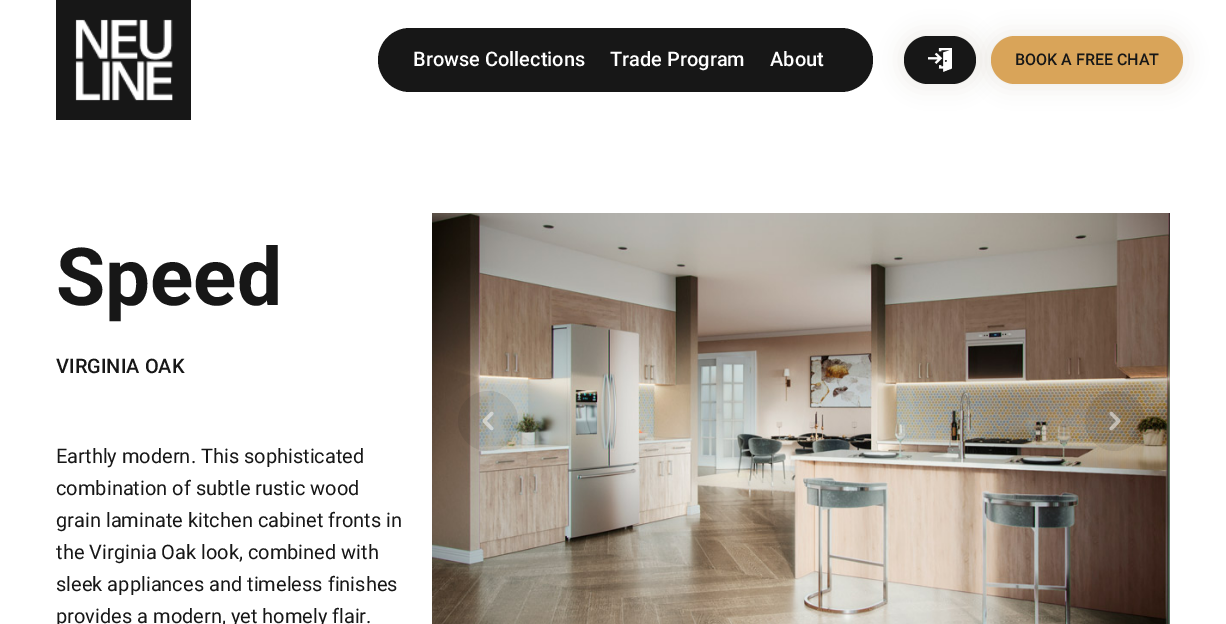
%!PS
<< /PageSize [1226 624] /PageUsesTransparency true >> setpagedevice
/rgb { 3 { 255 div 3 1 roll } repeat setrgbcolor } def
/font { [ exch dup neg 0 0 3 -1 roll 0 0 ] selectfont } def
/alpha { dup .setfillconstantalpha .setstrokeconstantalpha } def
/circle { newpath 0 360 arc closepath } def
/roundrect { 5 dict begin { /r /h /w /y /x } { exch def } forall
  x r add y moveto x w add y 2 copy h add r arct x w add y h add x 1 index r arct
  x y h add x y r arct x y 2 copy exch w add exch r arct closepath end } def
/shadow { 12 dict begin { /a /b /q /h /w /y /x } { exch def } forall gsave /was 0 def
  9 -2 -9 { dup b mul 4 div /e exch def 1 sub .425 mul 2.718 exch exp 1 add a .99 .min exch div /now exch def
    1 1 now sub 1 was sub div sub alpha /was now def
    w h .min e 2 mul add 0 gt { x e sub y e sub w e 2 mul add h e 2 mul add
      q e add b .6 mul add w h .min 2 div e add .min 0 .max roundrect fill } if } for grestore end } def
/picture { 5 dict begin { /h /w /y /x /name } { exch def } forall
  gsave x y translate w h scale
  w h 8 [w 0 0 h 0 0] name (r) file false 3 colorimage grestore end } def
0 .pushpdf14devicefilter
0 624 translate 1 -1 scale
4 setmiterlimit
255 255 255 rgb
0 0 1226 624 rectfill
(img/1.rgb) 56 0 135 120 picture
23 23 23 rgb
378 28 495 64 32 roundrect fill
101 77 42 rgb
900 32 80 56 28 10 0.1 shadow
23 23 23 rgb
904 36 72 48 24 roundrect fill
(img/2.rgb) 928 48 24 24 picture
101 77 42 rgb
987 32 200 56 28 10 0.1 shadow
217 164 89 rgb
991 36 192 48 24 roundrect fill
(img/3.rgb) 432 213 738 411 picture
0.1 alpha
23 23 23 rgb
488 421 30 circle fill
1 alpha
(img/4.rgb) 482 411 12 20 picture
0.1 alpha
1115 421 30 circle fill
1 alpha
(img/5.rgb) 1109 411 12 20 picture
/Roboto-Medium 20 font
255 255 255 rgb
[
  [(Browse Collections) 413 66]
  [(Trade Program) 610 66]
  [(About) 770 66]
] { aload pop moveto show } forall
/Roboto-Medium 16 font
23 23 23 rgb
1015 65 moveto (BOOK A FREE CHAT) show
/Roboto-Bold 80 font
56 305 moveto (Speed) show
/Roboto-Medium 20 font
56 373 moveto (VIRGINIA OAK) show
/Roboto-Regular 20 font
[
  [(Earthly modern. This sophisticated) 56 463]
  [(combination of subtle rustic wood) 56 495]
  [(grain laminate kitchen cabinet fronts in) 56 527]
  [(the Virginia Oak look, combined with) 56 559]
  [(sleek appliances and timeless finishes) 56 591]
  [(provides a modern, yet homely flair.) 56 623]
] { aload pop moveto show } forall
.poppdf14devicefilter showpage
